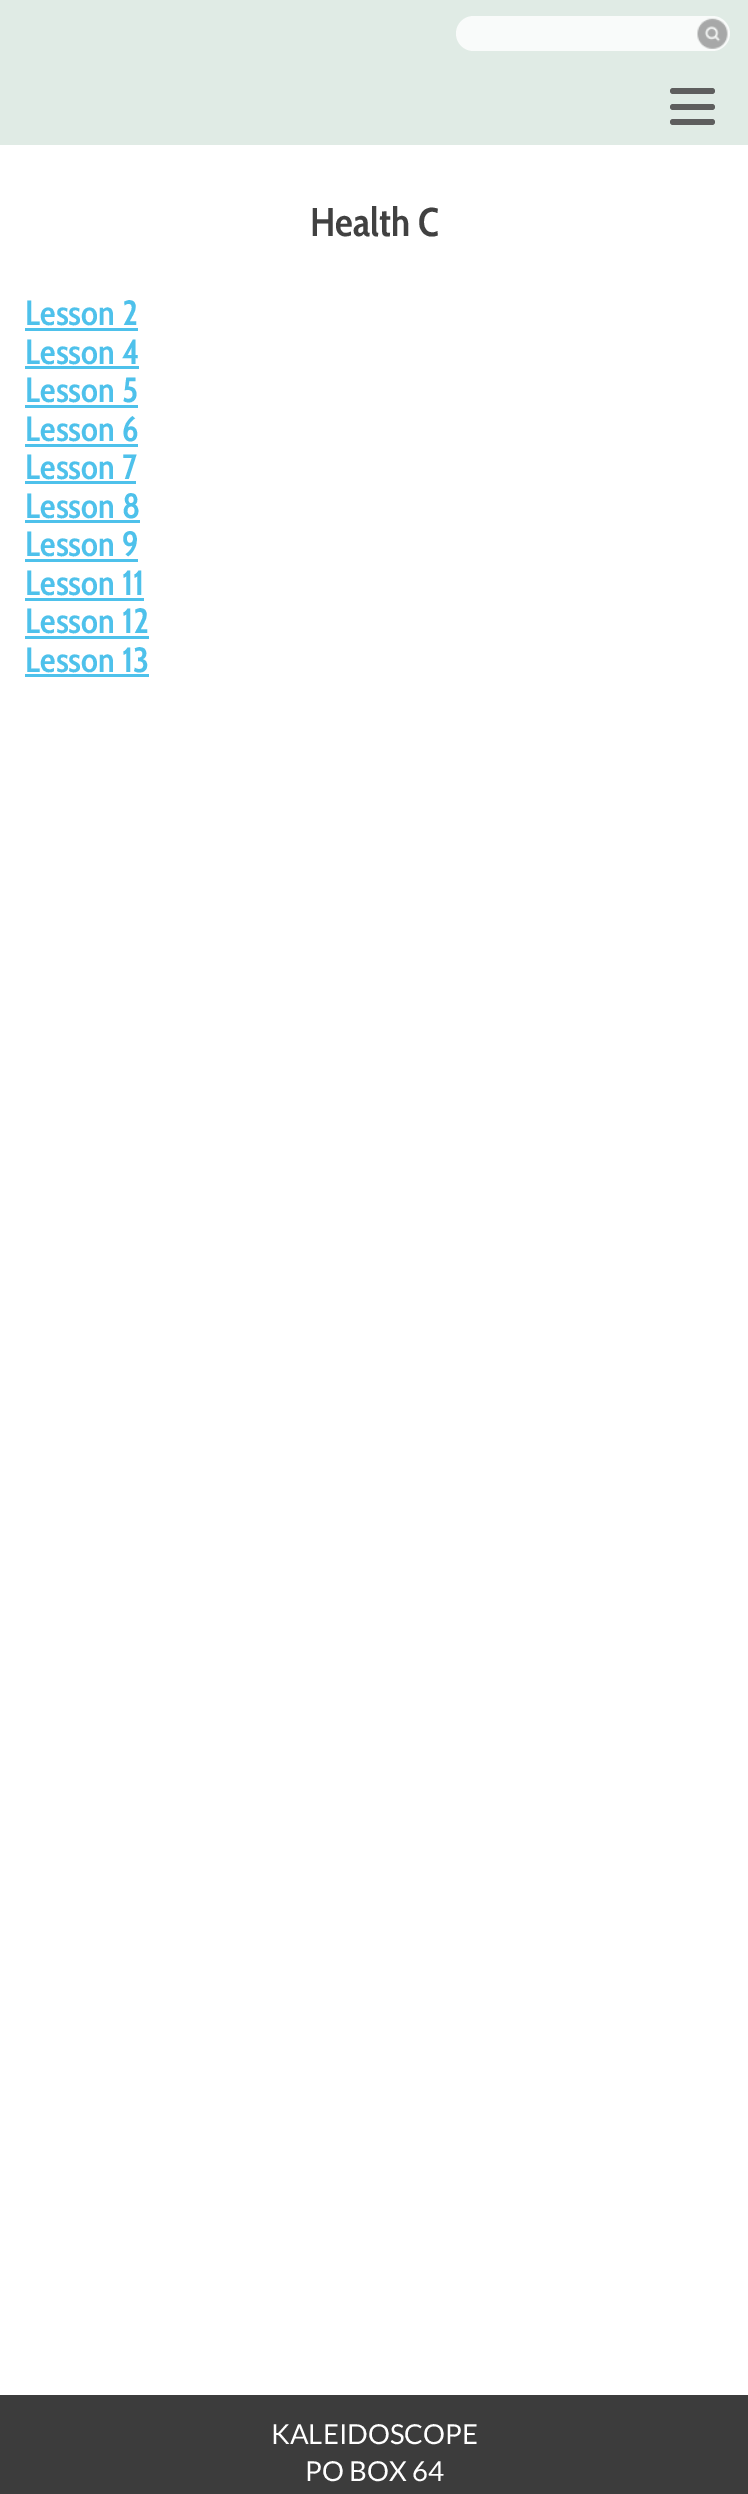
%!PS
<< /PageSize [748 2494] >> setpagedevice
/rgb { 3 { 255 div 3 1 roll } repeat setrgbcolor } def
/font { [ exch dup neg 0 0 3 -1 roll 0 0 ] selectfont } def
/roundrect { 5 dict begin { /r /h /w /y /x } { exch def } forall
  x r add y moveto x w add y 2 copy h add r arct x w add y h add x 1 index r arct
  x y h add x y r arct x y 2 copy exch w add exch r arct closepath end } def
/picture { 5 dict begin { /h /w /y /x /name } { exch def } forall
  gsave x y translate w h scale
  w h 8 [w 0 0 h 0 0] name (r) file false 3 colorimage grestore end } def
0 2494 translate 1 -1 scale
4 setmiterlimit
255 255 255 rgb
0 0 748 2494 rectfill
224 235 229 rgb
0 0 748 145 rectfill
249 251 250 rgb
456 16 274 35 17.5 roundrect fill
(img/1.rgb) 697 18 31 31 picture
94 94 94 rgb
670 88 45 6 3 roundrect fill
670 104 45 6 3 roundrect fill
670 119 45 6 3 roundrect fill
[
  [25 328 113 3 78 193 235]
  [25 366 114 3 78 193 235]
  [25 405 113 3 78 193 235]
  [25 444 113 3 78 193 235]
  [25 481 111 3 78 193 235]
  [25 520 115 3 78 193 235]
  [25 559 113 3 78 193 235]
  [25 598 119 3 78 193 235]
  [25 636 124 3 78 193 235]
  [25 674 124 3 78 193 235]
  [0 2395 748 99 60 60 60]
] { aload pop rgb rectfill } forall
/CabinCondensed-SemiBold 40 font
65 65 65 rgb
310 236 moveto (Health C) show
/CabinCondensed-SemiBold 35 font
78 193 235 rgb
[
  [(Lesson 2) 25 325]
  [(Lesson 4) 25 364]
  [(Lesson 5) 25 402]
  [(Lesson 6) 25 441]
  [(Lesson 7) 25 479]
  [(Lesson 8) 25 518]
  [(Lesson 9) 25 556]
  [(Lesson 11) 25 595]
  [(Lesson 12) 25 633]
  [(Lesson 13) 25 672]
] { aload pop moveto show } forall
/Lato-Regular 27.5 font
255 255 255 rgb
271 2444 moveto (KALEIDOSCOPE) show
305 2481 moveto (PO BOX 64) show
showpage
